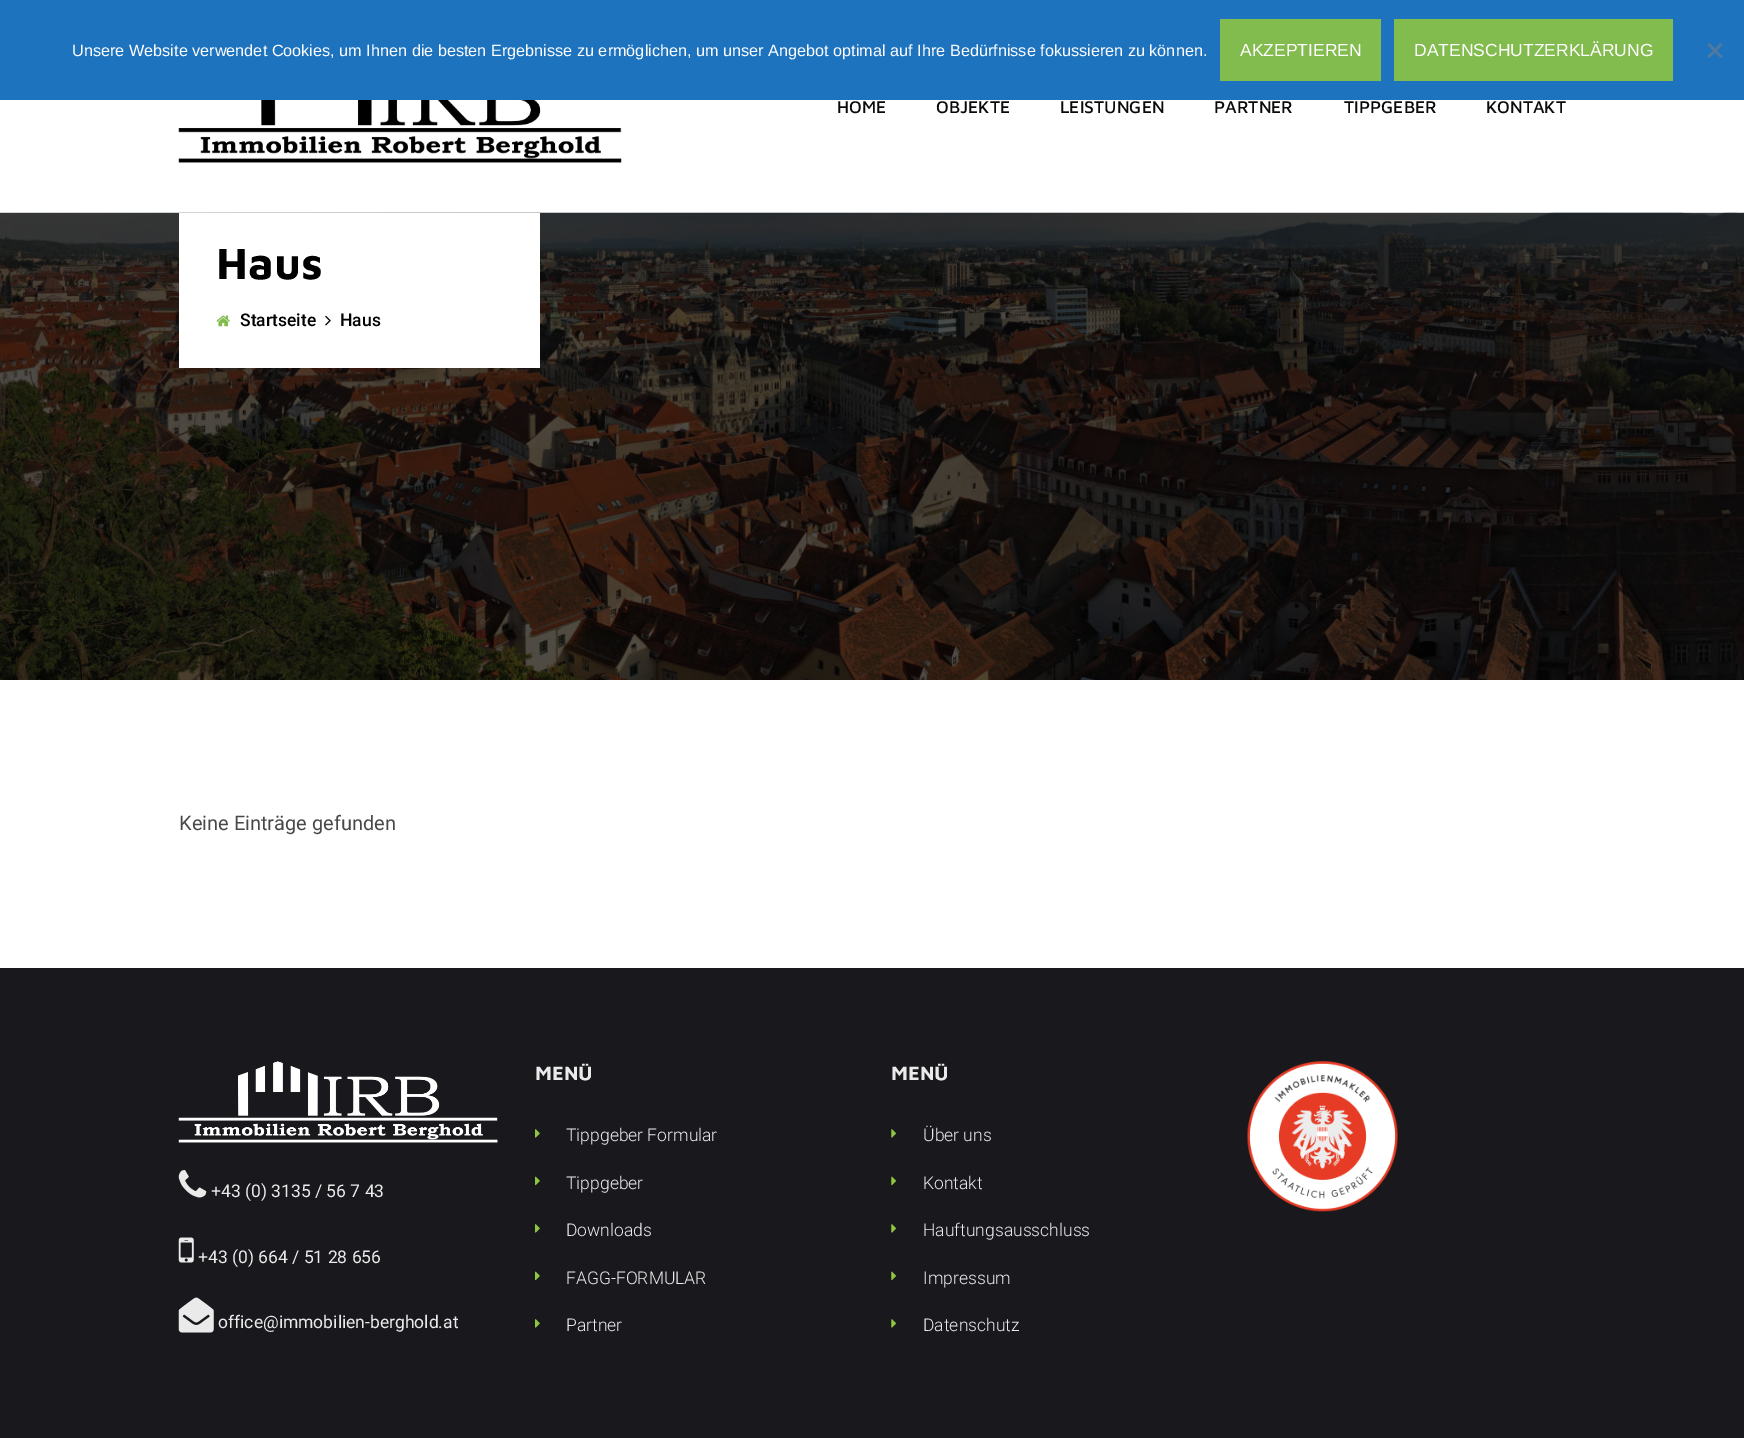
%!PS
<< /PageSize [1744 1438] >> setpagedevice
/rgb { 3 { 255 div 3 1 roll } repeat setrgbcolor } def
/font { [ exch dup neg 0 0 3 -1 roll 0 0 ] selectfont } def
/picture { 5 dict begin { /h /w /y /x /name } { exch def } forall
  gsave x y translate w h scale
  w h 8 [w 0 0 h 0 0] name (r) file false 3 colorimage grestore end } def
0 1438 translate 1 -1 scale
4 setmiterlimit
255 255 255 rgb
0 0 1744 1438 rectfill
[
  [0 0 1744 100 30 115 190]
  [1220 19 161 62 130 187 78]
  [1394 19 279 62 130 187 78]
] { aload pop rgb rectfill } forall
79 122 159 rgb
1720.5 43 moveto 1722.5 45 lineto 1709.5 58 lineto 1707.5 56.5 lineto closepath fill
1707.5 45 moveto 1709.5 43 lineto 1722.5 56.5 lineto 1720.5 58 lineto closepath fill
(img/1.rgb) 178 100 444 63 picture
(img/2.rgb) 0 212 1744 468 picture
255 255 255 rgb
179 213 361 155 rectfill
(img/3.rgb) 216 315 14 12 picture
(img/4.rgb) 325 315 6 11 picture
25 24 29 rgb
0 968 1744 470 rectfill
(img/5.rgb) 178 1061 320 82 picture
(img/6.rgb) 178 1170 29 28 picture
(img/7.rgb) 178 1237 16 26 picture
(img/8.rgb) 178 1297 36 36 picture
(img/9.rgb) 535 1129 5 9 picture
(img/10.rgb) 535 1176 5 10 picture
(img/9.rgb) 535 1224 5 9 picture
(img/10.rgb) 535 1271 5 10 picture
(img/9.rgb) 535 1319 5 9 picture
(img/11.rgb) 891 1129 5 9 picture
(img/12.rgb) 891 1176 5 10 picture
(img/11.rgb) 891 1224 5 9 picture
(img/12.rgb) 891 1271 5 10 picture
(img/11.rgb) 891 1319 5 9 picture
(img/13.rgb) 1247 1061 151 151 picture
/LiberationSans-Regular 16.25 font
255 255 255 rgb
72 56 moveto (Unsere Website verwendet Cookies, um Ihnen die besten Ergebnisse zu ermöglichen, um unser Angebot optimal auf Ihre Bedürfnisse fokussieren zu können.) show
/LiberationSans-Regular 17.5 font
1240 56 moveto (AKZEPTIEREN) show
1414 56 moveto (DATENSCHUTZERKLÄRUNG) show
/MavenPro-Medium 17.5 font
10 10 10 rgb
[
  [(HOME) 837 113]
  [(OBJEKTE) 936 113]
  [(LEISTUNGEN) 1060 113]
  [(PARTNER) 1214 113]
  [(TIPPGEBER) 1344 113]
  [(KONTAKT) 1486 113]
] { aload pop moveto show } forall
/MavenPro-Bold 45 font
0 0 0 rgb
216 279 moveto (Haus) show
/Roboto-Medium 17.5 font
240 326 moveto (Startseite) show
340 326 moveto (Haus) show
/Roboto-Regular 20 font
72 72 72 rgb
179 830 moveto (Keine Einträge gefunden) show
/Roboto-Regular 17.5 font
234 234 234 rgb
[
  [(+43 \(0\) 3135 / 56 7 43) 211 1197]
  [(+43 \(0\) 664 / 51 28 656) 198 1263]
  [(office@immobilien-berghold.at) 218 1328]
] { aload pop moveto show } forall
/MavenPro-Bold 20 font
535 1080 moveto (MENÜ) show
/Roboto-Light 17.5 font
[
  [(Tippgeber Formular) 566 1141]
  [(Tippgeber) 566 1189]
  [(Downloads) 566 1236]
  [(FAGG-FORMULAR) 566 1284]
  [(Partner) 566 1331]
] { aload pop moveto show } forall
/MavenPro-Bold 20 font
891 1080 moveto (MENÜ) show
/Roboto-Light 17.5 font
[
  [(Über uns) 923 1141]
  [(Kontakt) 923 1189]
  [(Hauftungsausschluss) 923 1236]
  [(Impressum) 923 1284]
  [(Datenschutz) 923 1331]
] { aload pop moveto show } forall
showpage
